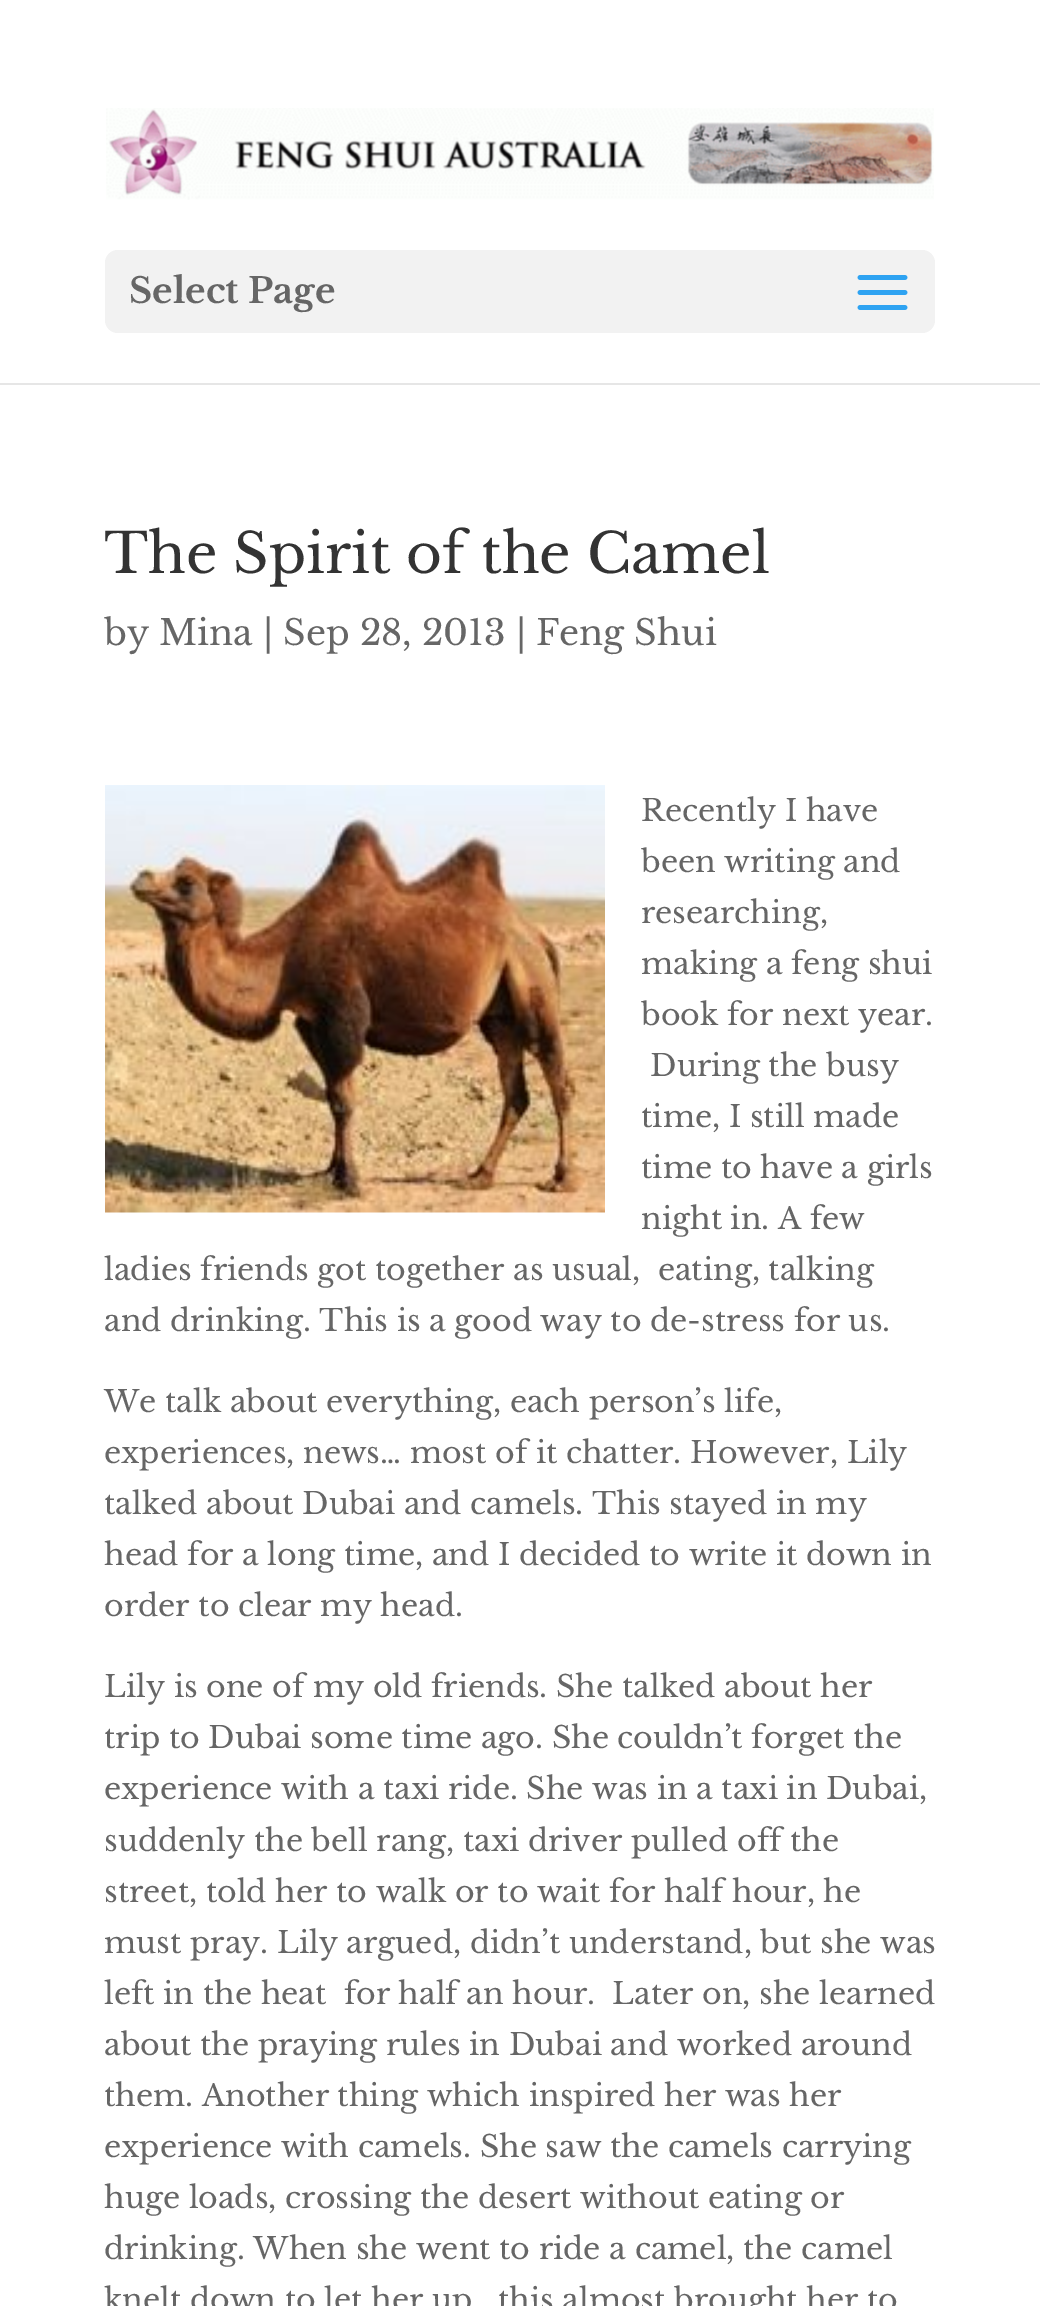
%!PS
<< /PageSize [1040 2306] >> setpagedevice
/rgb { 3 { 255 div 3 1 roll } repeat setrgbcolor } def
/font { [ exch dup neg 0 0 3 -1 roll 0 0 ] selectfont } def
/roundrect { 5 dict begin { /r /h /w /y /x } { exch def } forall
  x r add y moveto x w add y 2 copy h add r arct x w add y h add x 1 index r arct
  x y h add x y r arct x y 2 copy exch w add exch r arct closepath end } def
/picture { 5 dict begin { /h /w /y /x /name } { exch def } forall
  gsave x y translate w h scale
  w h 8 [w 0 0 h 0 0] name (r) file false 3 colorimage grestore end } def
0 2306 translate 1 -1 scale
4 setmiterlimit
255 255 255 rgb
0 0 1040 2306 rectfill
(img/1.rgb) 106 108 828 92 picture
242 242 242 rgb
105 250 830 83 13 roundrect fill
(img/2.rgb) 857 275 51 35 picture
230 230 230 rgb
0 383 1040 2 rectfill
(img/3.rgb) 105 785 500 428 picture
/LibreBaskerville-Bold 35 font
102 102 102 rgb
129 303 moveto (Select Page) show
/LibreBaskerville-Regular 55 font
51 51 51 rgb
104 573 moveto (The Spirit of the Camel) show
/LibreBaskerville-Regular 35 font
102 102 102 rgb
104 645 moveto (by Mina | Sep 28, 2013 | Feng Shui) show
/LibreBaskerville-Regular 30 font
[
  [(Recently I have) 641 821]
  [(been writing and) 641 872]
  [(researching,) 641 923]
  [(making a feng shui) 641 974]
  [(book for next year.) 641 1025]
  [(During the busy) 650 1076]
  [(time, I still made) 641 1127]
  [(time to have a girls) 641 1178]
  [(night in. A few) 641 1229]
  [(ladies friends got together as usual,  eating, talking) 104 1280]
  [(and drinking. This is a good way to de-stress for us.) 104 1331]
  [(We talk about everything, each person’s life,) 104 1412]
  [(experiences, news… most of it chatter. However, Lily) 104 1463]
  [(talked about Dubai and camels. This stayed in my) 104 1514]
  [(head for a long time, and I decided to write it down in) 104 1565]
  [(order to clear my head.) 104 1616]
  [(Lily is one of my old friends. She talked about her) 104 1697]
  [(trip to Dubai some time ago. She couldn’t forget the) 104 1748]
  [(experience with a taxi ride. She was in a taxi in Dubai,) 104 1799]
  [(suddenly the bell rang, taxi driver pulled off the) 104 1851]
  [(street, told her to walk or to wait for half hour, he) 104 1902]
  [(must pray. Lily argued, didn’t understand, but she was) 104 1953]
  [(left in the heat  for half an hour.  Later on, she learned) 104 2004]
  [(about the praying rules in Dubai and worked around) 104 2055]
  [(them. Another thing which inspired her was her) 104 2106]
  [(experience with camels. She saw the camels carrying) 104 2157]
  [(huge loads, crossing the desert without eating or) 104 2208]
  [(drinking. When she went to ride a camel, the camel) 104 2259]
  [(knelt down to let her up,  this almost brought her to) 104 2310]
] { aload pop moveto show } forall
showpage
